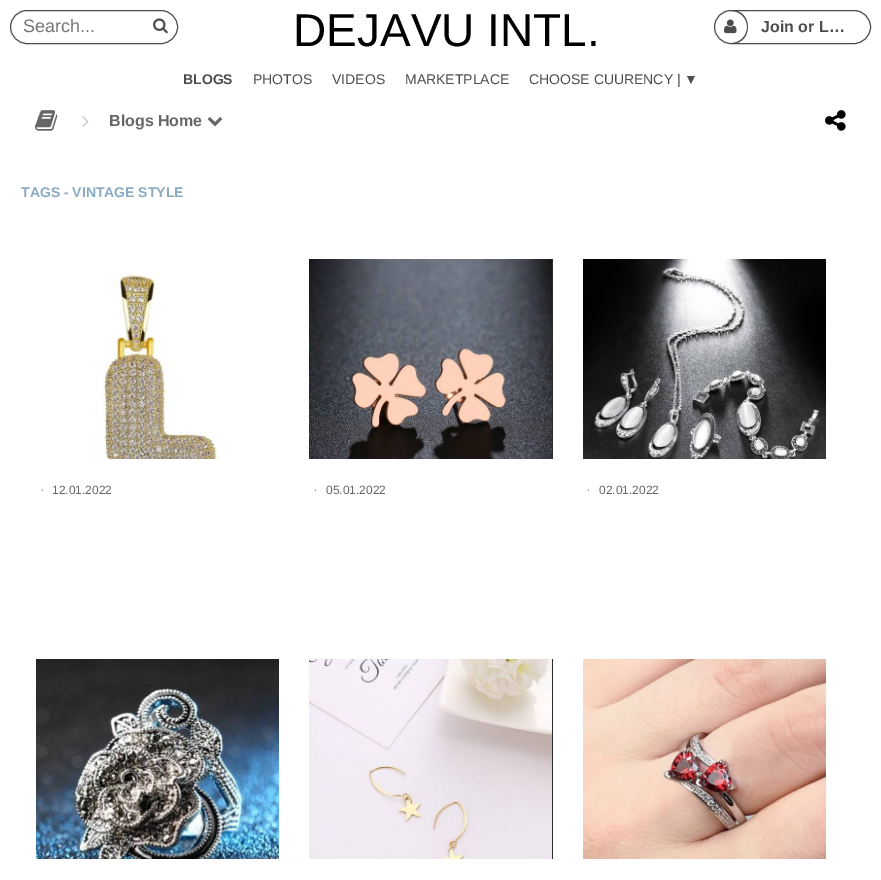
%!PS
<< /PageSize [881 880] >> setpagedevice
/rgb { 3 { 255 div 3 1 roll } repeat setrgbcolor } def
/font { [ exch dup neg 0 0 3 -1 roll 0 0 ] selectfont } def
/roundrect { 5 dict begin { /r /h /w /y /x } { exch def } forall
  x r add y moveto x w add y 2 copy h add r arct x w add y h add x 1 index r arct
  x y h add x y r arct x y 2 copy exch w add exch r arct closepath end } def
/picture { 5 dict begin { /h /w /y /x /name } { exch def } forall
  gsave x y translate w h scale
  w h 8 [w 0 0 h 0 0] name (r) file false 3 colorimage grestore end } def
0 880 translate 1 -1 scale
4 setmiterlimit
255 255 255 rgb
0 0 881 880 rectfill
77 77 77 rgb
10.5 10.5 167 33 16.5 roundrect stroke
(img/1.rgb) 153 18 15 16 picture
714.5 10.5 156 33 16.5 roundrect stroke
731 11 moveto 737 11 lineto 751.5 15.5 751.5 38.5 737 43 curveto 731 43 lineto 740 43 747 36 747 27 curveto 747 18 740 11 731 11 curveto closepath fill
(img/2.rgb) 724 19 13 15 picture
(img/3.rgb) 35 110 23 21 picture
(img/4.rgb) 82 116 7 11 picture
(img/5.rgb) 207 117 16 10 picture
(img/6.rgb) 825 110 21 21 picture
(img/7.rgb) 36 259 243 200 picture
43 43 43 rgb
552 259 1 200 rectfill
(img/8.rgb) 309 259 243 200 picture
(img/9.rgb) 583 259 243 200 picture
(img/10.rgb) 36 659 243 200 picture
552 659 1 200 rectfill
(img/11.rgb) 309 659 243 200 picture
(img/12.rgb) 583 659 243 200 picture
/LiberationSans-Regular 18 font
117 117 117 rgb
23 32 moveto (Search...) show
/LiberationSans-Regular 46 font
0 0 0 rgb
293 46 moveto (DEJAVU INTL.) show
/LiberationSans-Bold 16 font
77 77 77 rgb
761 32 moveto (Join or L…) show
/LiberationSans-Bold 14 font
183 84 moveto (BLOGS) show
/LiberationSans-Regular 14 font
[
  [(PHOTOS) 253 84]
  [(VIDEOS) 332 84]
  [(MARKETPLACE) 405 84]
  [(CHOOSE CUURENCY | ▼) 529 84]
] { aload pop moveto show } forall
/LiberationSans-Bold 16 font
102 102 102 rgb
109 126 moveto (Blogs Home) show
/LiberationSans-Bold 14 font
136 171 194 rgb
21 197 moveto (TAGS - VINTAGE STYLE) show
/LiberationSans-Regular 14 font
153 153 153 rgb
40 494 moveto (·) show
/LiberationSans-Regular 12 font
102 102 102 rgb
52 494 moveto (12.01.2022) show
/LiberationSans-Regular 14 font
153 153 153 rgb
313 494 moveto (·) show
/LiberationSans-Regular 12 font
102 102 102 rgb
326 494 moveto (05.01.2022) show
/LiberationSans-Regular 14 font
153 153 153 rgb
586 494 moveto (·) show
/LiberationSans-Regular 12 font
102 102 102 rgb
599 494 moveto (02.01.2022) show
showpage
